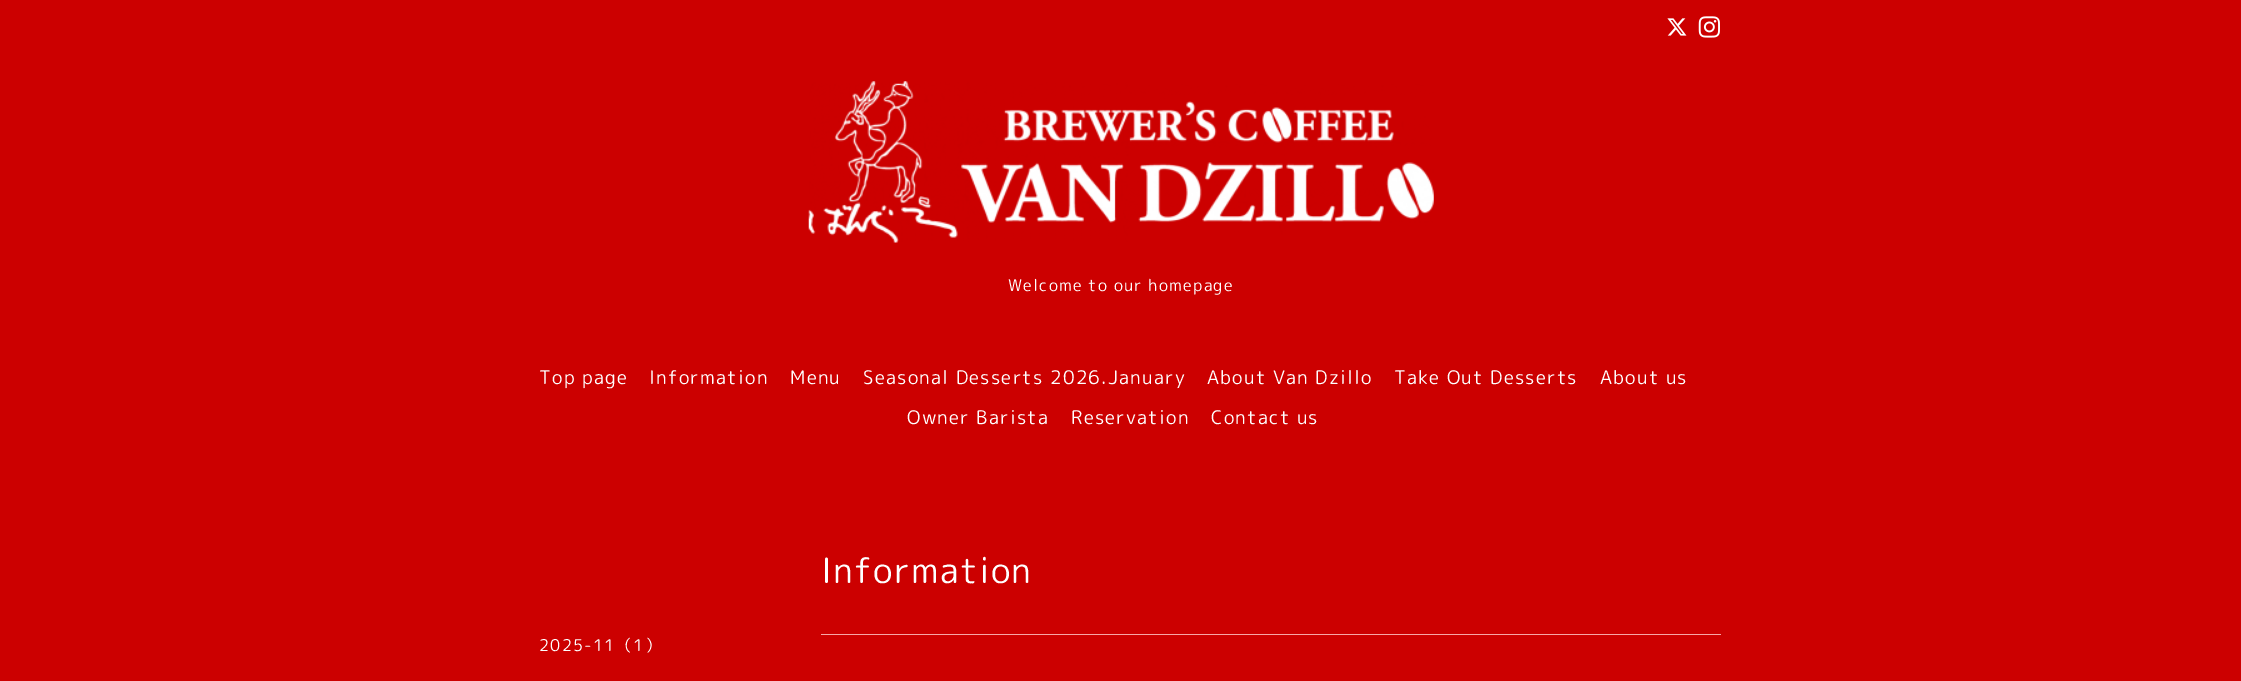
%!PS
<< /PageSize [2241 681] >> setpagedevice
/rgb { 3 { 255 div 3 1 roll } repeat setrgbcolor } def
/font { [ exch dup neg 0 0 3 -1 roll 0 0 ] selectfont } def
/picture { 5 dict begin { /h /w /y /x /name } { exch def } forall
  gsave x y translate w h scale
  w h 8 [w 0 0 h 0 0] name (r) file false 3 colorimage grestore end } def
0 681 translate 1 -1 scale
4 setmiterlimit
204 0 0 rgb
0 0 2241 681 rectfill
(img/1.rgb) 1667 18 20 18 picture
(img/2.rgb) 1698 16 22 22 picture
(img/3.rgb) 808 81 626 162 picture
247 167 167 rgb
821 634 900 1 rectfill
/RoundedMplus1c-Regular 16.25 font
255 255 255 rgb
1008 291 moveto 1.25 0 (Welcome to our homepage) ashow
/RoundedMplus1c-Regular 18.75 font
539 384 moveto 1.25 0 (Top page) ashow
649 384 moveto 1.25 0 (Information) ashow
790 384 moveto 1.25 0 (Menu) ashow
863 384 moveto 1.25 0 (Seasonal Desserts 2026.January) ashow
1207 384 moveto 1.25 0 (About Van Dzillo) ashow
1394 384 moveto 1.25 0 (Take Out Desserts) ashow
1600 384 moveto 1.25 0 (About us) ashow
907 424 moveto 1.25 0 (Owner Barista) ashow
1071 424 moveto 1.25 0 (Reservation) ashow
1211 424 moveto 1.25 0 (Contact us) ashow
/RoundedMplus1c-Regular 35 font
821 583 moveto 1.25 0 (Information) ashow
/RoundedMplus1c-Regular 16.25 font
539 651 moveto 1.25 0 (2025-11（1）) ashow
showpage
